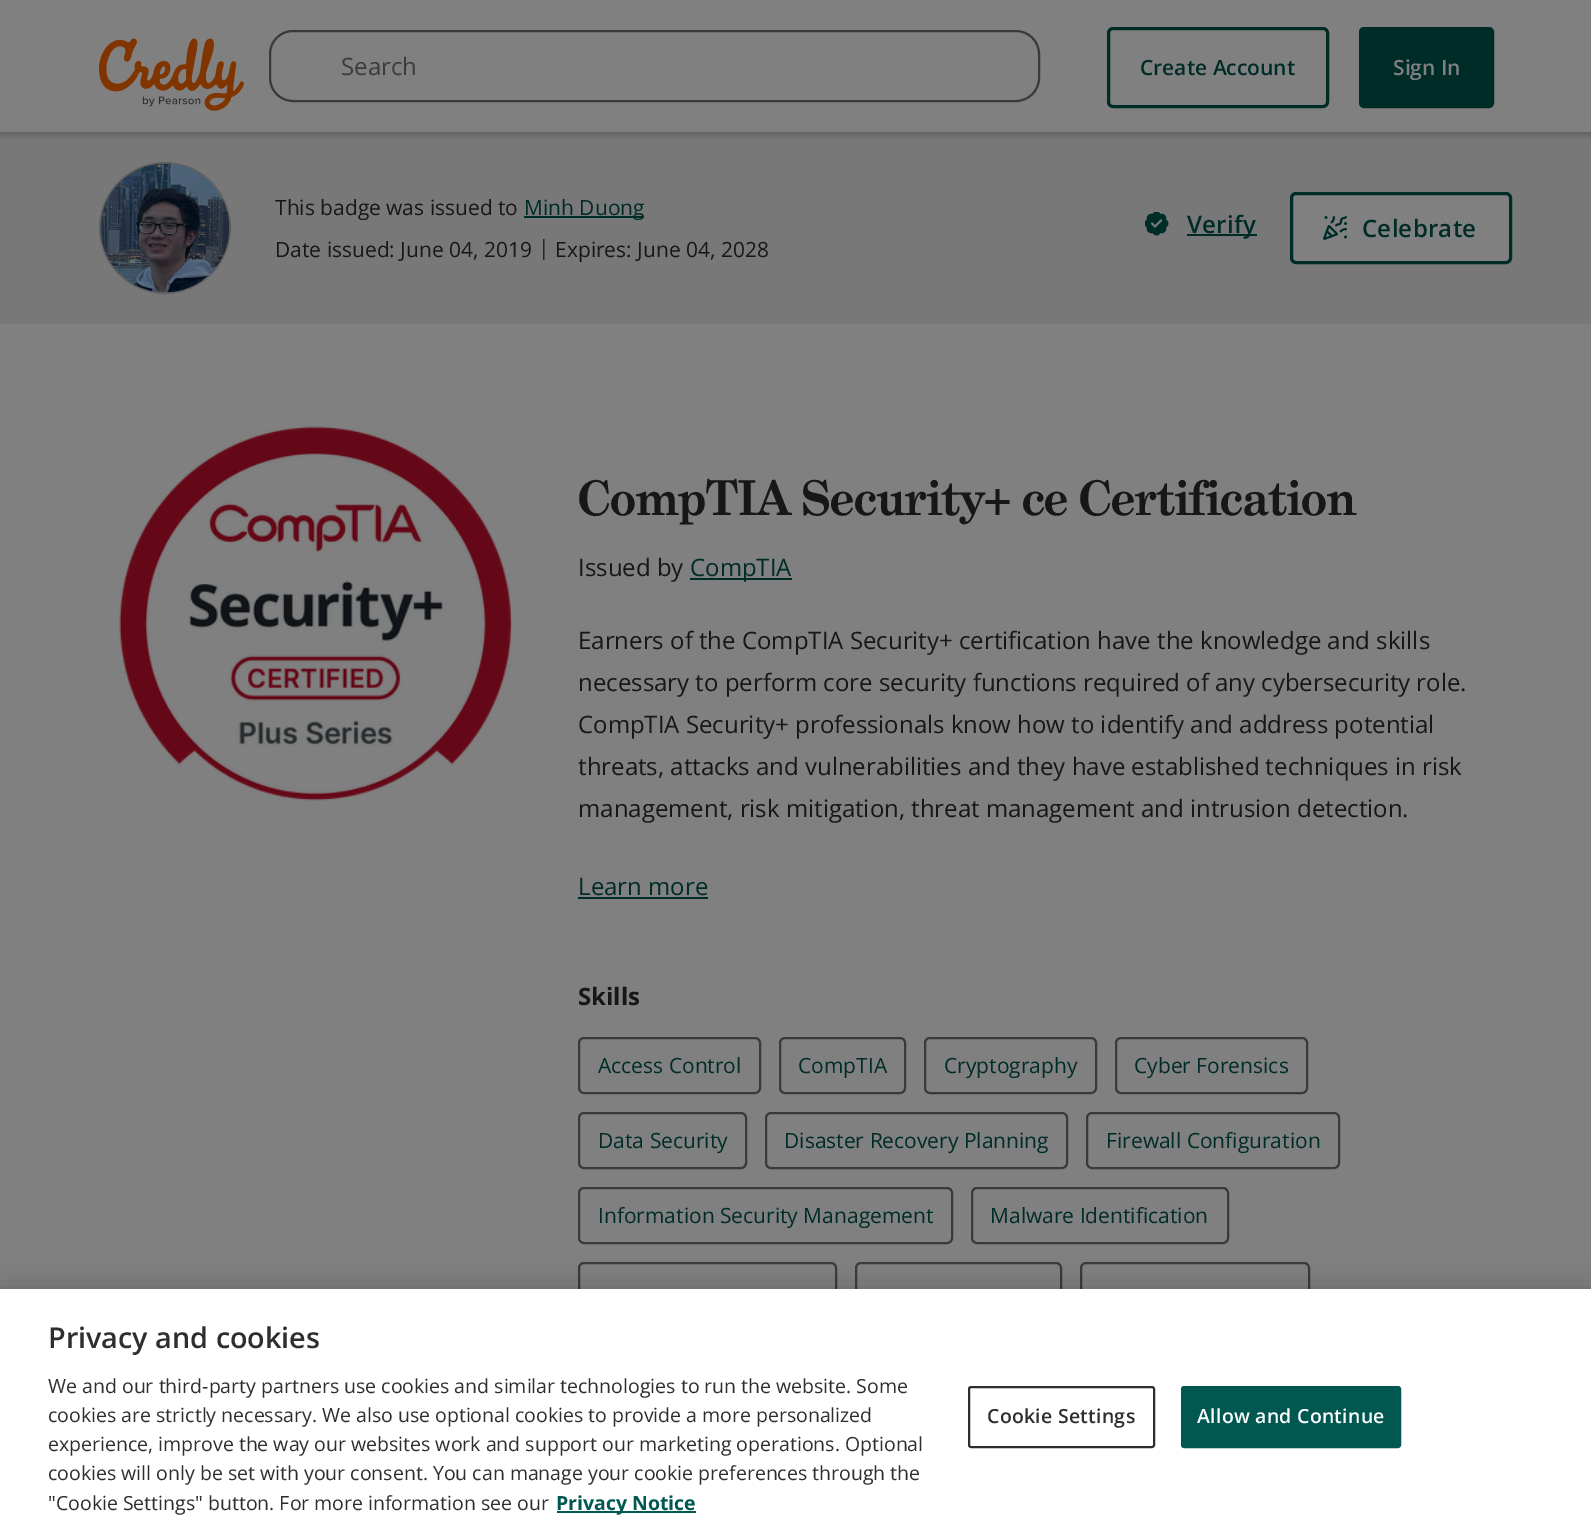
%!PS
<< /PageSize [1591 1532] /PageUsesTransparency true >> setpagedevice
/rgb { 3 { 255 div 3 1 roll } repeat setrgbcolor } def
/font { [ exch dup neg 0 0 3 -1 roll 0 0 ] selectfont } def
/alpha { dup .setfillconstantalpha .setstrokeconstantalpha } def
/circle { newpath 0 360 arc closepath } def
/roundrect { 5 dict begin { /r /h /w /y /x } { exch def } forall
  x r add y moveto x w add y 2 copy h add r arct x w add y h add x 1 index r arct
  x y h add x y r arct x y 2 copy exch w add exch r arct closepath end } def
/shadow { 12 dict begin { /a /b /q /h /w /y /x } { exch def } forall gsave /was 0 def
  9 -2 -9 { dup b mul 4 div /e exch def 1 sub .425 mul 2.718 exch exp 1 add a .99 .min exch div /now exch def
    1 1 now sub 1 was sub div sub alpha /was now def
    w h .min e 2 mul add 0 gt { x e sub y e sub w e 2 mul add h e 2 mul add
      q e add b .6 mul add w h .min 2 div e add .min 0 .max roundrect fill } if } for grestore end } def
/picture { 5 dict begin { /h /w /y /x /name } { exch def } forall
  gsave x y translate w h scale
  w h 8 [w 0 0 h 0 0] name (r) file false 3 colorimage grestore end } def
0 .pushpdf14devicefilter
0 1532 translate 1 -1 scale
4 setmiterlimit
128 128 128 rgb
0 0 1591 1532 rectfill
120 120 120 rgb
0 132 1591 192 rectfill
gsave
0 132 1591 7 rectclip
0 0 0 rgb
0 3 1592 132 0 3 0.2 shadow
grestore
(img/1.rgb) 99 38 145 73 picture
58 58 58 rgb
2 setlinewidth
270 31 769 70 23 roundrect stroke
0 44 40 rgb
3 setlinewidth
1108.5 28.5 219 78 4.5 roundrect stroke
1360.5 28.5 132 78 3.5 roundrect gsave fill grestore
stroke
97 97 97 rgb
2 setlinewidth
165 228 65 circle stroke
(img/2.rgb) 100 163 130 130 picture
0 44 40 rgb
524 216 120 2 rectfill
(img/3.rgb) 1145 212 24 24 picture
1187 234 70 2 rectfill
128 128 128 rgb
1291.5 193.5 219 69 4.5 roundrect gsave fill grestore
0 44 40 rgb
3 setlinewidth
stroke
(img/4.rgb) 1323 216 24 24 picture
(img/5.rgb) 119 426 393 375 picture
690 578 102 2 rectfill
578 897 130 2 rectfill
58 58 58 rgb
2 setlinewidth
579 1038 181 55 5 roundrect stroke
780 1038 125 55 5 roundrect stroke
925 1038 171 55 5 roundrect stroke
1116 1038 191 55 5 roundrect stroke
579 1113 167 55 5 roundrect stroke
766 1113 301 55 5 roundrect stroke
1087 1113 252 55 5 roundrect stroke
579 1188 373 55 5 roundrect stroke
972 1188 256 55 5 roundrect stroke
579 1263 257 55 5 roundrect stroke
856 1263 205 55 5 roundrect stroke
1081 1263 228 55 5 roundrect stroke
0 0 0 rgb
0 1289 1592 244 0 13.5 0.2 shadow
255 255 255 rgb
0 1289 1591 243 rectfill
0 88 80 rgb
557 1511 139 2 rectfill
46 46 46 rgb
969 1387 185 60 2 roundrect stroke
0 88 80 rgb
1182 1387 218 60 2 roundrect gsave fill grestore
stroke
/OpenSans-Regular 24 font
59 59 59 rgb
341 75 moveto (Search) show
/OpenSans-SemiBold 21 font
0 44 40 rgb
1140 75 moveto (Create Account) show
128 128 128 rgb
1393 75 moveto (Sign In) show
/OpenSans-Regular 21 font
23 23 23 rgb
275 215 moveto (This badge was issued to) show
0 44 40 rgb
524 215 moveto (Minh Duong) show
23 23 23 rgb
275 257 moveto (Date issued: June 04, 2019) show
39 39 39 rgb
538 255 moveto (|) show
23 23 23 rgb
555 257 moveto (Expires: June 04, 2028) show
/OpenSans-SemiBold 24 font
0 44 40 rgb
1187 233 moveto 0.25 0 (Verify) ashow
1362 237 moveto 0.25 0 (Celebrate) ashow
/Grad-Bold 48 font
23 23 23 rgb
578 515 moveto (CompTIA Security+ ce Certification) show
/OpenSans-Regular 24 font
578 576 moveto (Issued by) show
0 44 40 rgb
690 576 moveto (CompTIA) show
23 23 23 rgb
[
  [(Earners of the CompTIA Security+ certification have the knowledge and skills) 578 649]
  [(necessary to perform core security functions required of any cybersecurity role.) 578 691]
  [(CompTIA Security+ professionals know how to identify and address potential) 578 733]
  [(threats, attacks and vulnerabilities and they have established techniques in risk) 578 775]
  [(management, risk mitigation, threat management and intrusion detection.) 578 817]
] { aload pop moveto show } forall
0 44 40 rgb
578 895 moveto (Learn more) show
/OpenSans-Bold 24 font
23 23 23 rgb
578 1005 moveto (Skills) show
/OpenSans-Regular 21 font
0 44 40 rgb
[
  [(Access Control) 598 1073]
  [(CompTIA) 798 1073]
  [(Cryptography) 944 1073]
  [(Cyber Forensics) 1134 1073]
  [(Data Security) 598 1148]
  [(Disaster Recovery Planning) 784 1148]
  [(Firewall Configuration) 1106 1148]
  [(Information Security Management) 598 1223]
  [(Malware Identification) 990 1223]
] { aload pop moveto show } forall
/OpenSans-SemiBold 28.75 font
46 46 46 rgb
48 1348 moveto (Privacy and cookies) show
/OpenSans-Regular 19.5 font
[
  [(We and our third-party partners use cookies and similar technologies to run the website. Some) 48 1393]
  [(cookies are strictly necessary. We also use optional cookies to provide a more personalized) 48 1422]
  [(experience, improve the way our websites work and support our marketing operations. Optional) 48 1451]
  [(cookies will only be set with your consent. You can manage your cookie preferences through the) 48 1480]
  [("Cookie Settings" button. For more information see our) 48 1510]
] { aload pop moveto show } forall
/OpenSans-Bold 19.5 font
0 88 80 rgb
556 1510 moveto (Privacy Notice) show
/OpenSans-SemiBold 19.5 font
46 46 46 rgb
987 1423 moveto 0.25 0 (Cookie Settings) ashow
254 254 254 rgb
1197 1423 moveto 0.25 0 (Allow and Continue) ashow
.poppdf14devicefilter showpage
